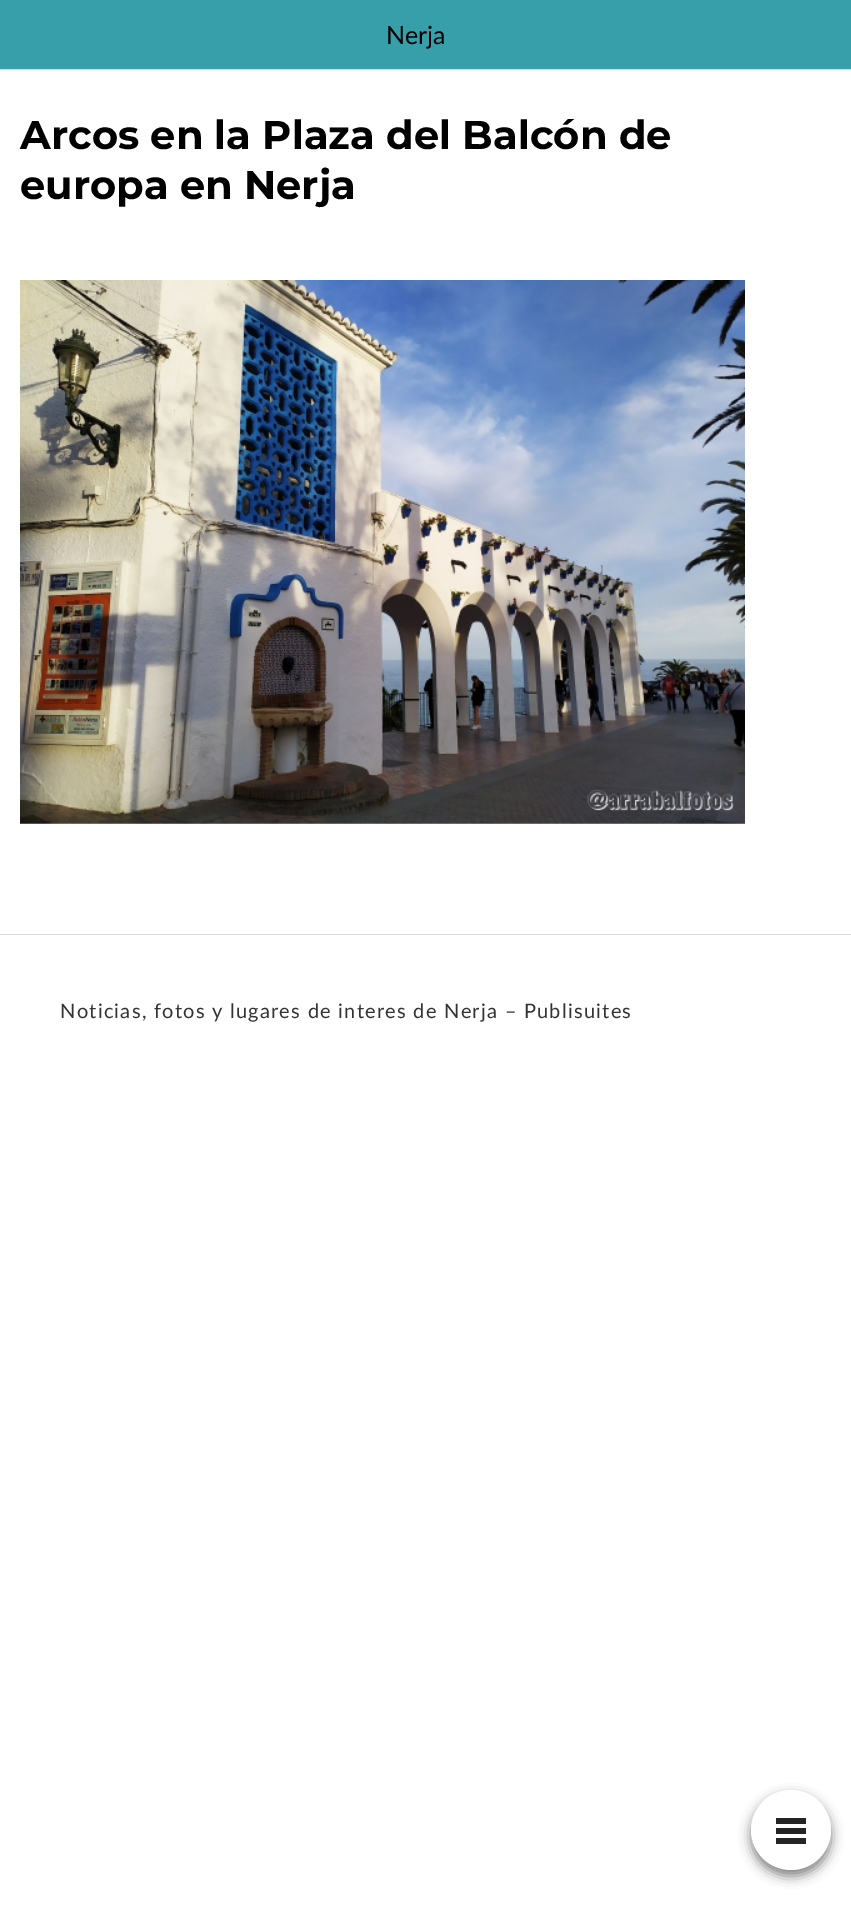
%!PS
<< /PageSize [851 1930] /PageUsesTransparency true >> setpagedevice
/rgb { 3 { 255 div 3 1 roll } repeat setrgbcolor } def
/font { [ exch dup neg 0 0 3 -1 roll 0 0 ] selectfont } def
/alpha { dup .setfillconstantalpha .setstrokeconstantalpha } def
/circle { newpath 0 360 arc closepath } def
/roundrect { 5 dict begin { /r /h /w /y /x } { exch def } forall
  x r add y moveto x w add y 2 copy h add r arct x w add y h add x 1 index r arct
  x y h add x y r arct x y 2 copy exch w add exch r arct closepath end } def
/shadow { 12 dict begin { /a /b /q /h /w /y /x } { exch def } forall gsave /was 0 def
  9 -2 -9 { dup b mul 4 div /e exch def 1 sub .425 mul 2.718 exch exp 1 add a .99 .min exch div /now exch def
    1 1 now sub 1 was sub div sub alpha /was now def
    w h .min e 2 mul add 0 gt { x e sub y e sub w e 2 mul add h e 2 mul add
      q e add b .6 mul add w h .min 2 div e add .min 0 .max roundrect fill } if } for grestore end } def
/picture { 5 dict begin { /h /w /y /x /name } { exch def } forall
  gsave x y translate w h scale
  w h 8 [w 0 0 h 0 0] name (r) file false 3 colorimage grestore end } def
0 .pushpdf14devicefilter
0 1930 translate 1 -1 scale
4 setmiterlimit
255 255 255 rgb
0 0 851 1930 rectfill
54 159 170 rgb
0 0 851 69 rectfill
219 219 219 rgb
0 69 851 1 rectfill
0 0 0 rgb
751 1796 80 80 40 6 0.5 shadow
255 255 255 rgb
791 1830 40 circle fill
[
  [776 1828 30 6 37 37 37]
  [776 1818 30 6 37 37 37]
  [776 1838 30 6 37 37 37]
] { aload pop rgb rectfill } forall
(img/1.rgb) 20 280 725 544 picture
219 219 219 rgb
0 934 851 1 rectfill
/Lato-Regular 25 font
0 0 0 rgb
386 44 moveto (Nerja) show
/Montserrat-Bold 40 font
20 149 moveto (Arcos en la Plaza del Balcón de) show
20 199 moveto (europa en Nerja) show
/Lato-Regular 20 font
51 51 51 rgb
60 1018 moveto 1.25 0 (Noticias, fotos y lugares de interes de Nerja – Publisuites) ashow
.poppdf14devicefilter showpage
